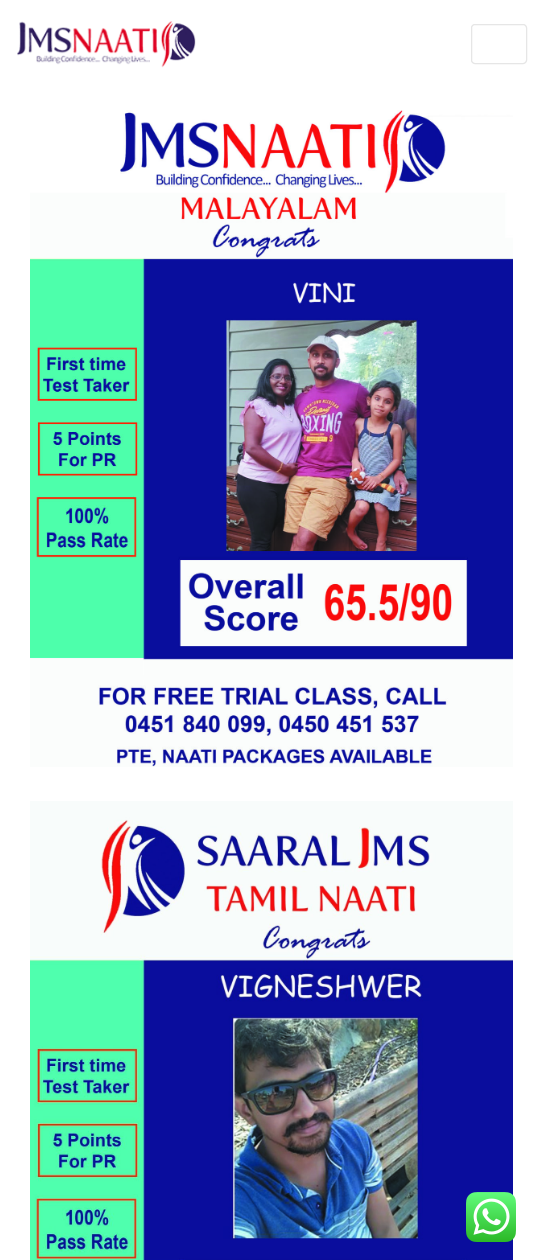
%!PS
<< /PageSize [543 1260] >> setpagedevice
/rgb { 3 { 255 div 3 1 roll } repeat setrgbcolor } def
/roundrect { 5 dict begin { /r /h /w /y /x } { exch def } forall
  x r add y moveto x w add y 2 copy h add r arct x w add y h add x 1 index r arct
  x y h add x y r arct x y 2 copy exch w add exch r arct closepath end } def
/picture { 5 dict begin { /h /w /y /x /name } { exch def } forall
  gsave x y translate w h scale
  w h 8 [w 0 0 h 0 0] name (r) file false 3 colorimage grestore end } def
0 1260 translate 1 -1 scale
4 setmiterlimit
255 255 255 rgb
0 0 543 1260 rectfill
(img/1.rgb) 17 21 179 47 picture
230 230 230 rgb
471.5 24.5 55 39 3.5 roundrect stroke
(img/2.rgb) 30 110 483 657 picture
(img/3.rgb) 30 801 483 459 picture
(img/4.rgb) 466 1192 50 50 picture
showpage
